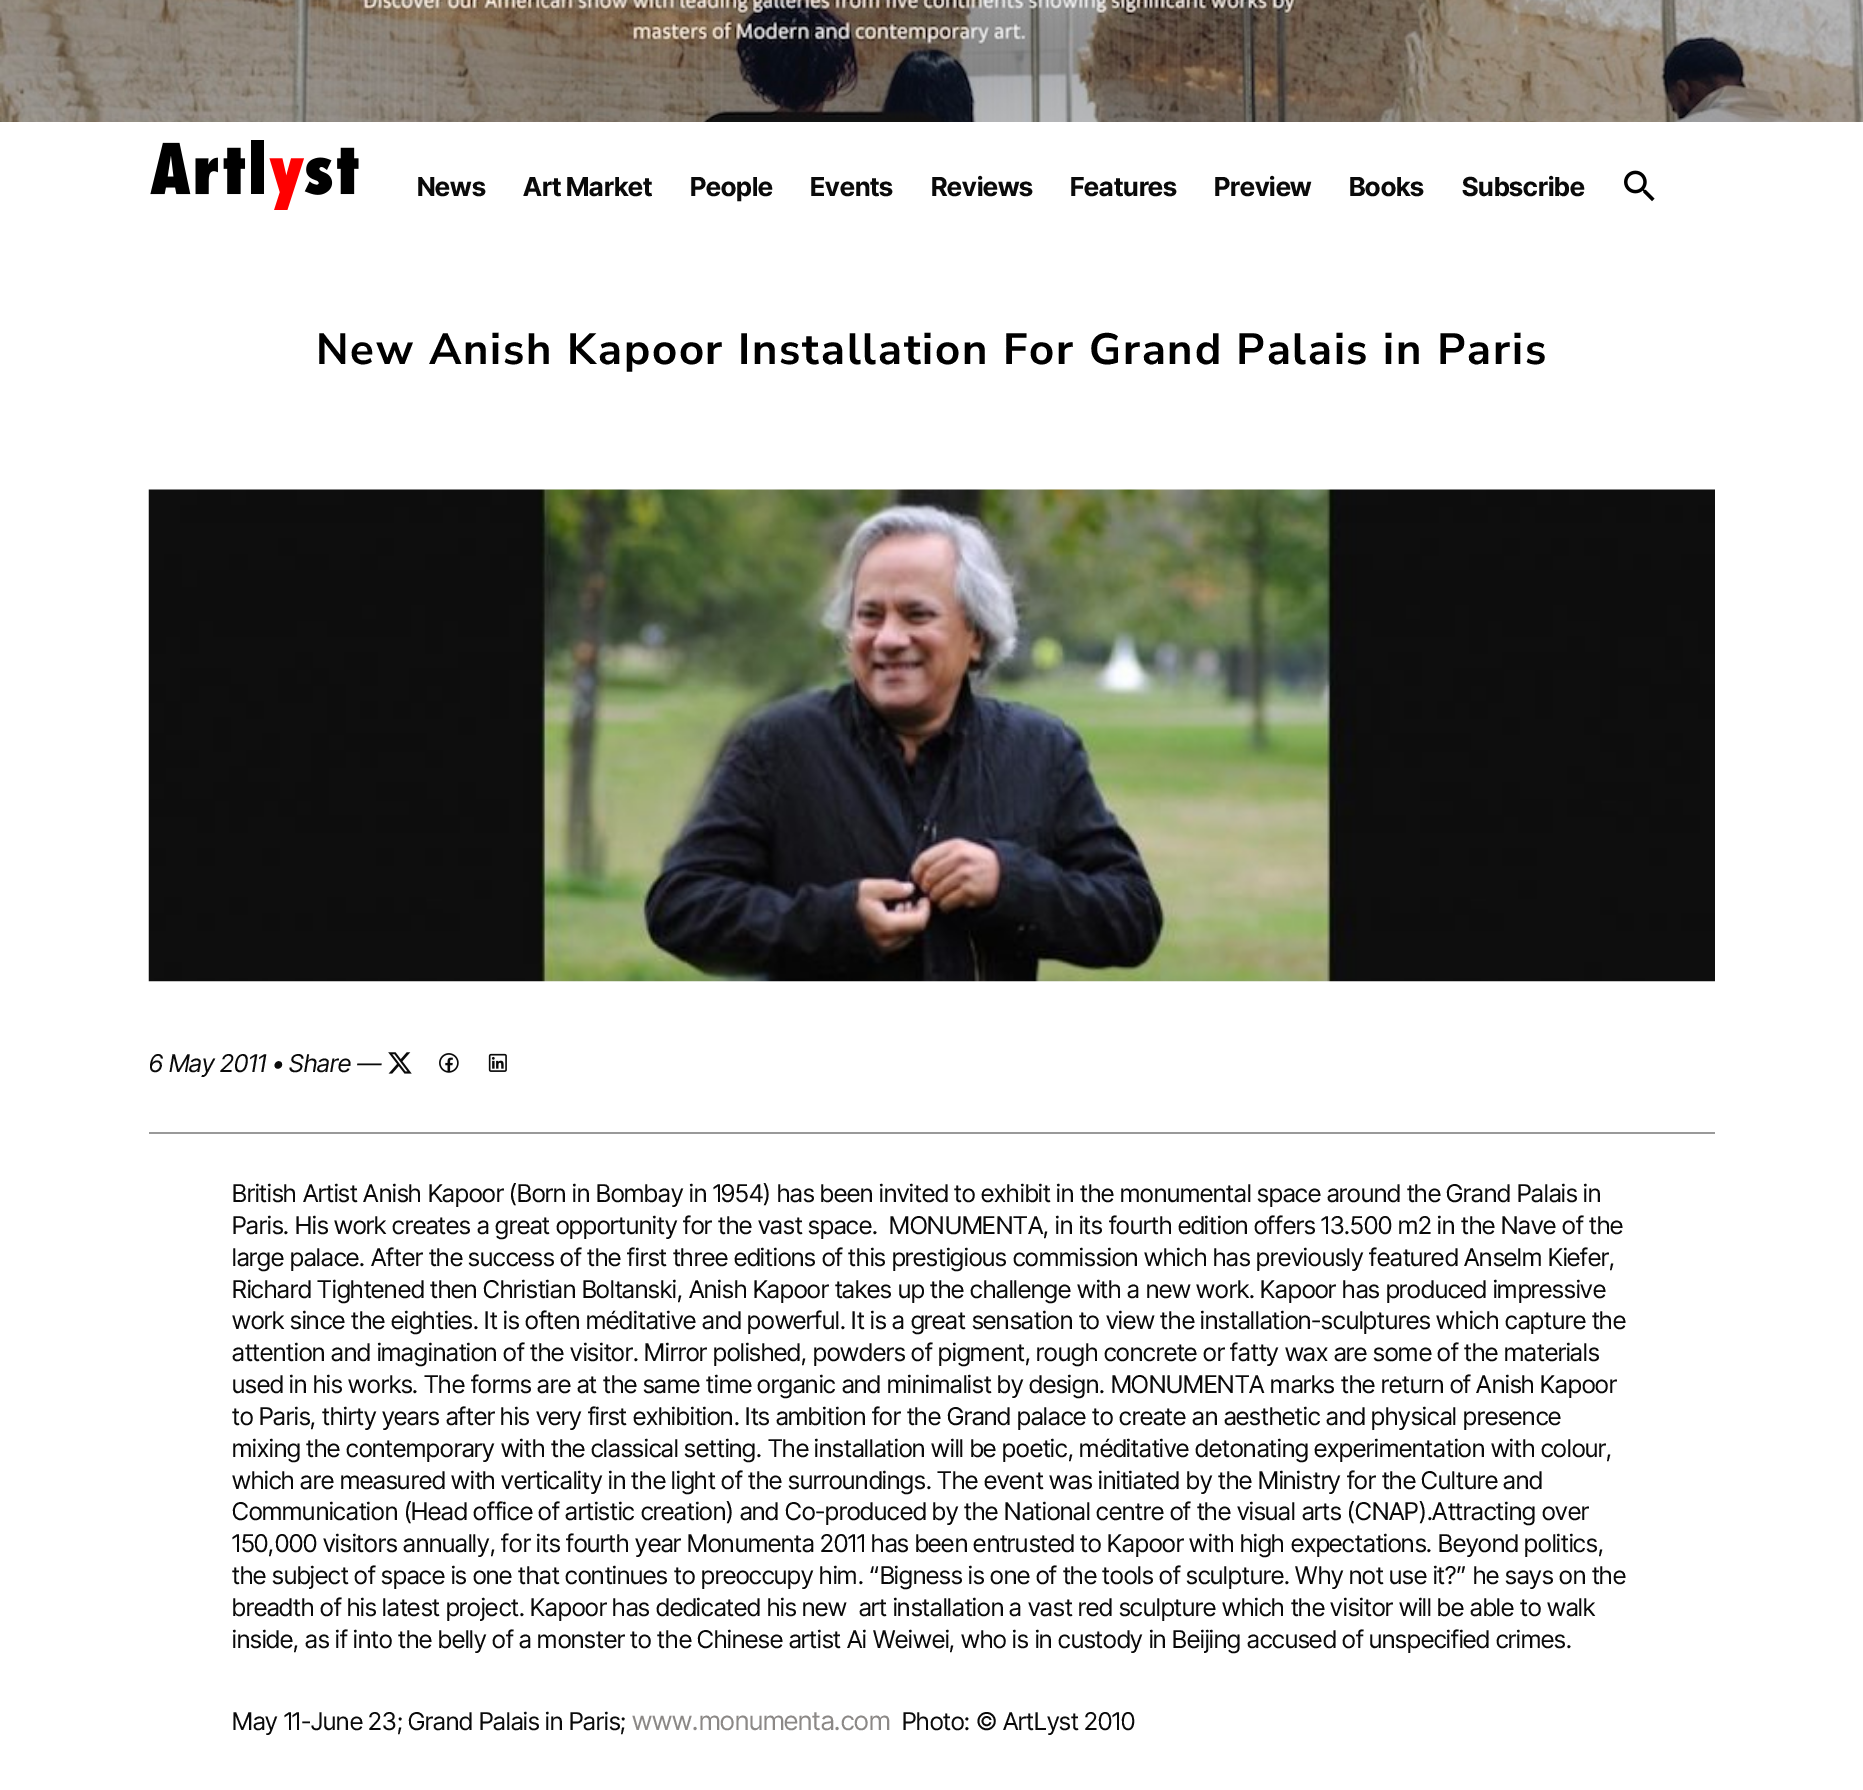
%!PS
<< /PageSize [1863 1790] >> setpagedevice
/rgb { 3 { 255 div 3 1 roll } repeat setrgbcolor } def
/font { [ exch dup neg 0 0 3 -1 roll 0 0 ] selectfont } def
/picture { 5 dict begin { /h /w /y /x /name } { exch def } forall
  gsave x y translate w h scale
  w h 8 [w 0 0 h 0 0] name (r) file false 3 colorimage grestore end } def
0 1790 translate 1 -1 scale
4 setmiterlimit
255 255 255 rgb
0 0 1863 1790 rectfill
(img/1.rgb) 0 0 1863 122 picture
(img/2.rgb) 150 140 209 70 picture
(img/3.rgb) 1624 170 31 32 picture
(img/4.rgb) 148 489 1567 493 picture
153 153 153 rgb
149 1132 1566 2 rectfill
(img/5.rgb) 388 1052 24 22 picture
(img/6.rgb) 439 1053 20 20 picture
(img/7.rgb) 488 1053 19 19 picture
/InterTight-Bold 26.25 font
10 10 10 rgb
[
  [(News) 417 196]
  [(Art Market) 523 196]
  [(People) 690 196]
  [(Events) 810 196]
  [(Reviews) 931 196]
  [(Features) 1070 196]
  [(Preview) 1214 196]
  [(Books) 1349 196]
  [(Subscribe) 1462 196]
] { aload pop moveto show } forall
/NunitoSans-Bold 43.75 font
0 0 0 rgb
316 364 moveto 1.75 0 (New Anish Kapoor Installation For Grand Palais in Paris) ashow
/InterTight-Italic 24.5 font
10 10 10 rgb
149 1072 moveto (6 May 2011 • Share —) show
/InterTight-Regular 24.5 font
[
  [(British Artist Anish Kapoor \(Born in Bombay in 1954\) has been invited to exhibit in the monumental space around the Grand Palais in) 232 1202]
  [(Paris. His work creates a great opportunity for the vast space.  MONUMENTA, in its fourth edition offers 13.500 m2 in the Nave of the) 232 1234]
  [(large palace. After the success of the first three editions of this prestigious commission which has previously featured Anselm Kiefer,) 232 1266]
  [(Richard Tightened then Christian Boltanski, Anish Kapoor takes up the challenge with a new work. Kapoor has produced impressive) 232 1298]
  [(work since the eighties. It is often méditative and powerful. It is a great sensation to view the installation-sculptures which capture the) 232 1329]
  [(attention and imagination of the visitor. Mirror polished, powders of pigment, rough concrete or fatty wax are some of the materials) 232 1361]
  [(used in his works. The forms are at the same time organic and minimalist by design. MONUMENTA marks the return of Anish Kapoor) 232 1393]
  [(to Paris, thirty years after his very first exhibition. Its ambition for the Grand palace to create an aesthetic and physical presence) 232 1425]
  [(mixing the contemporary with the classical setting. The installation will be poetic, méditative detonating experimentation with colour,) 232 1457]
  [(which are measured with verticality in the light of the surroundings. The event was initiated by the Ministry for the Culture and) 232 1489]
  [(Communication \(Head office of artistic creation\) and Co-produced by the National centre of the visual arts \(CNAP\).Attracting over) 232 1520]
  [(150,000 visitors annually, for its fourth year Monumenta 2011 has been entrusted to Kapoor with high expectations. Beyond politics,) 232 1552]
  [(the subject of space is one that continues to preoccupy him. “Bigness is one of the tools of sculpture. Why not use it?” he says on the) 232 1584]
  [(breadth of his latest project. Kapoor has dedicated his new  art installation a vast red sculpture which the visitor will be able to walk) 232 1616]
  [(inside, as if into the belly of a monster to the Chinese artist Ai Weiwei, who is in custody in Beijing accused of unspecified crimes.) 232 1648]
  [(May 11-June 23; Grand Palais in Paris;) 232 1730]
] { aload pop moveto show } forall
/InterTight-Regular 26.25 font
140 137 135 rgb
632 1730 moveto (www.monumenta.com) show
/InterTight-Regular 24.5 font
10 10 10 rgb
902 1730 moveto (Photo: © ArtLyst 2010) show
showpage
